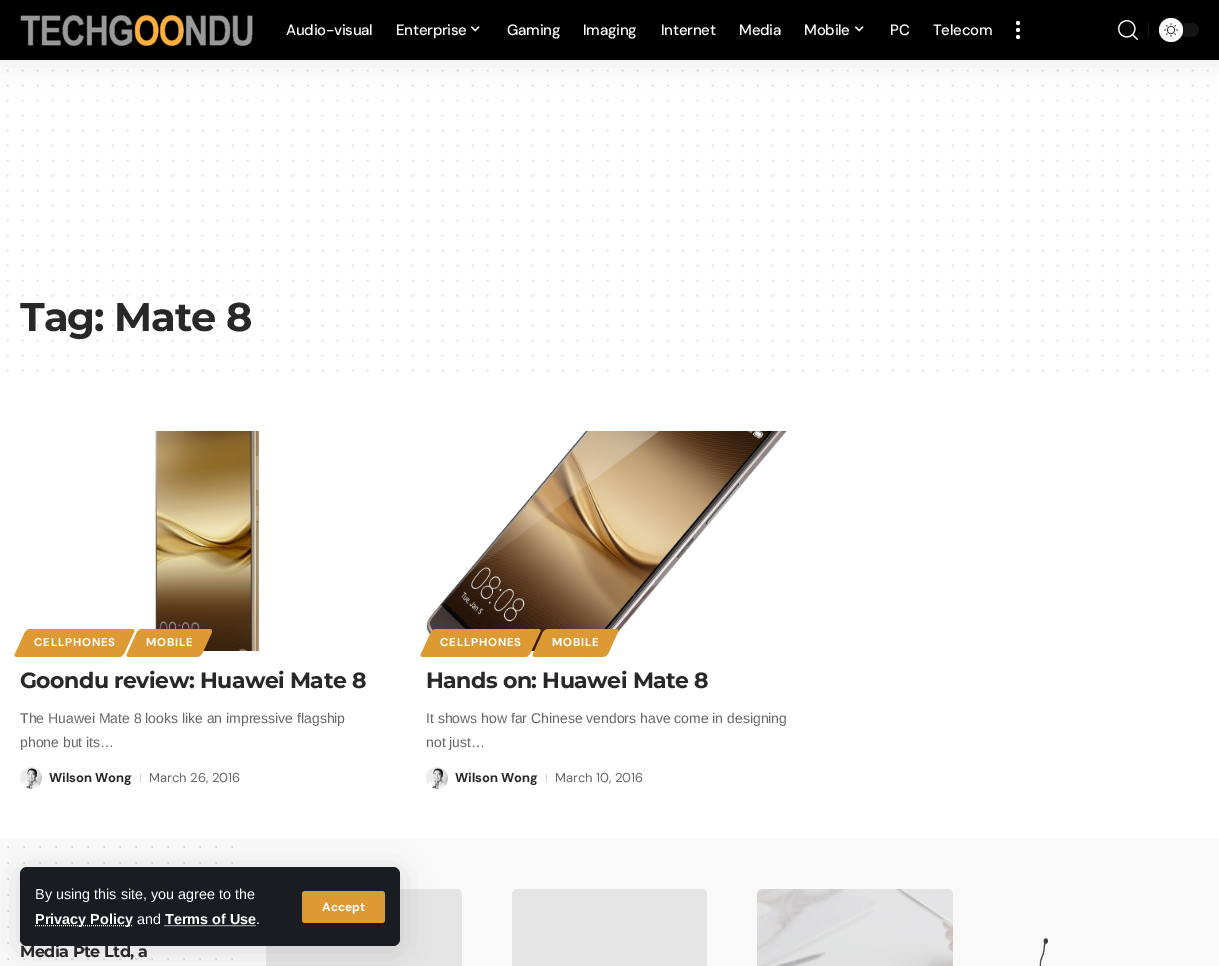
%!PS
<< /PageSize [1219 966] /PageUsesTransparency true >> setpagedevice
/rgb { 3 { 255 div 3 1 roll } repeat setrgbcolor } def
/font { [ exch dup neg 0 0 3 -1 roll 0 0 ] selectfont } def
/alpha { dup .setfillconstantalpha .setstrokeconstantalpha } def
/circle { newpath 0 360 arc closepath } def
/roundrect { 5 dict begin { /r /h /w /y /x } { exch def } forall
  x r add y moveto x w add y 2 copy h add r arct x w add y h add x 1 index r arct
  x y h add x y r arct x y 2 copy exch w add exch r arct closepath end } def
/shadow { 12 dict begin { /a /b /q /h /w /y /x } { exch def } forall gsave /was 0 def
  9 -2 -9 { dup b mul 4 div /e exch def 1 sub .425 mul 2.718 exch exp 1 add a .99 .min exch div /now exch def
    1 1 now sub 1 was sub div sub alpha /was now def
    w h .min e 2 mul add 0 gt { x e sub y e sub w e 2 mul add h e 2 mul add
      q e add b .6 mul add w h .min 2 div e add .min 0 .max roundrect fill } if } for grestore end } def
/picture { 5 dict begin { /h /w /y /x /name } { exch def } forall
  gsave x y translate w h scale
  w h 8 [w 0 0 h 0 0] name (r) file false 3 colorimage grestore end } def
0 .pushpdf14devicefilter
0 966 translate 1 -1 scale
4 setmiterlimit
255 255 255 rgb
0 0 1219 966 rectfill
223 223 223 rgb
2 setlinewidth
1 setlinecap
[0 15] 0 setdash
7.5 70.5 moveto 1207.7 70.5 lineto stroke
7.5 85.5 moveto 1207.7 85.5 lineto stroke
7.5 100.5 moveto 1207.7 100.5 lineto stroke
0 0 0 rgb
0 4 1219 60 0 15 0.07 shadow
0 0 1219 60 rectfill
(img/1.rgb) 20 15 233 31 picture
(img/2.rgb) 470 26 10 6 picture
(img/2.rgb) 854 26 10 6 picture
255 255 255 rgb
1018 23 2 circle fill
1018 30 2 circle fill
1018 37 2 circle fill
(img/3.rgb) 1118 20 20 20 picture
26 26 26 rgb
1148 23 1 14 rectfill
20 20 20 rgb
1159 23 40 14 7 roundrect fill
255 255 255 rgb
1171 30 12 circle fill
(img/4.rgb) 1164 23 14 14 picture
249 249 249 rgb
0 839 1219 127 rectfill
207 207 207 rgb
1.5 setlinewidth
[0 16] 0 setdash
8 847 moveto 232.2 847 lineto stroke
8 863 moveto 232.2 863 lineto stroke
8 879 moveto 232.2 879 lineto stroke
8 895 moveto 232.2 895 lineto stroke
8 911 moveto 232.2 911 lineto stroke
8 927 moveto 232.2 927 lineto stroke
8 943 moveto 232.2 943 lineto stroke
8 959 moveto 232.2 959 lineto stroke
(img/8.rgb) 266 889 196 77 picture
0 0 0 rgb
20 871 380 79 7 15 0.12 shadow
223 223 223 rgb
2 setlinewidth
[0 15] 0 setdash
7.5 115.5 moveto 1207.7 115.5 lineto stroke
7.5 130.5 moveto 1207.7 130.5 lineto stroke
7.5 145.5 moveto 1207.7 145.5 lineto stroke
7.5 160.5 moveto 1207.7 160.5 lineto stroke
7.5 175.5 moveto 1207.7 175.5 lineto stroke
7.5 190.5 moveto 1207.7 190.5 lineto stroke
7.5 205.5 moveto 1207.7 205.5 lineto stroke
7.5 220.5 moveto 1207.7 220.5 lineto stroke
7.5 235.5 moveto 1207.7 235.5 lineto stroke
7.5 250.5 moveto 1207.7 250.5 lineto stroke
7.5 265.5 moveto 1207.7 265.5 lineto stroke
7.5 280.5 moveto 1207.7 280.5 lineto stroke
7.5 295.5 moveto 1207.7 295.5 lineto stroke
7.5 355.5 moveto 1207.7 355.5 lineto stroke
7.5 370.5 moveto 1207.7 370.5 lineto stroke
221 153 51 rgb
29 629 moveto 132 629 lineto 134 629 135 631 134 632 curveto 124 654 lineto 123 655 121 657 120 657 curveto 17 657 lineto 15 657 14 655 15 654 curveto 25 632 lineto 26 631 28 629 29 629 curveto closepath fill
(img/5.rgb) 153 431 107 220 picture
141 629 moveto 210 629 lineto 212 629 212 631 212 632 curveto 202 654 lineto 201 655 199 657 197 657 curveto 129 657 lineto 127 657 126 655 127 654 curveto 137 632 lineto 138 631 140 629 141 629 curveto closepath fill
(img/6.rgb) 20 767 22 22 picture
209 209 209 rgb
140 774 1 8 rectfill
(img/7.rgb) 426 431 361 220 picture
221 153 51 rgb
436 629 moveto 539 629 lineto 540 629 541 631 540 632 curveto 530 654 lineto 529 655 527 657 526 657 curveto 423 657 lineto 421 657 420 655 421 654 curveto 431 632 lineto 432 631 434 629 436 629 curveto closepath fill
548 629 moveto 616 629 lineto 618 629 619 631 618 632 curveto 608 654 lineto 607 655 605 657 603 657 curveto 535 657 lineto 533 657 532 655 533 654 curveto 543 632 lineto 544 631 546 629 548 629 curveto closepath fill
(img/6.rgb) 426 767 22 22 picture
209 209 209 rgb
546 774 1 8 rectfill
(img/9.rgb) 512 889 195 77 picture
(img/10.rgb) 757 889 196 77 picture
(img/11.rgb) 1039 938 9 28 picture
/DMSans-Medium 15 font
255 255 255 rgb
286 35 moveto -0.25 0 (Audio-visual) ashow
396 35 moveto -0.25 0 (Enterprise) ashow
507 35 moveto -0.25 0 (Gaming) ashow
583 35 moveto -0.25 0 (Imaging) ashow
661 35 moveto -0.25 0 (Internet) ashow
739 35 moveto -0.25 0 (Media) ashow
804 35 moveto -0.25 0 (Mobile) ashow
890 35 moveto -0.25 0 (PC) ashow
933 35 moveto -0.25 0 (Telecom) ashow
/Montserrat-Bold 40 font
40 40 40 rgb
20 331 moveto -1 0 (Tag: Mate 8) ashow
223 223 223 rgb
7.5 340.5 moveto 1207.7 340.5 lineto stroke
0.15 alpha
40 40 40 rgb
7.5 325.5 moveto 1207.7 325.5 lineto stroke
7.5 310.5 moveto 1207.7 310.5 lineto stroke
/DMSans-Bold 11.5 font
1 alpha
255 255 255 rgb
34 646 moveto 0.75 0 (CELLPHONES) ashow
146 646 moveto 0.75 0 (MOBILE) ashow
/Montserrat-Bold 22 font
40 40 40 rgb
20 688 moveto -0.5 0 (Goondu review: Huawei Mate 8) ashow
/LiberationSans-Regular 14 font
102 102 102 rgb
20 723 moveto (The Huawei Mate 8 looks like an impressive flagship) show
20 747 moveto (phone but its…) show
/DMSans-Bold 13 font
40 40 40 rgb
49 782 moveto (Wilson Wong) show
/DMSans-Regular 13 font
102 102 102 rgb
149 782 moveto (March 26, 2016) show
/DMSans-Bold 11.5 font
255 255 255 rgb
440 646 moveto 0.75 0 (CELLPHONES) ashow
552 646 moveto 0.75 0 (MOBILE) ashow
/Montserrat-Bold 22 font
40 40 40 rgb
426 688 moveto -0.5 0 (Hands on: Huawei Mate 8) ashow
/LiberationSans-Regular 14 font
102 102 102 rgb
426 723 moveto (It shows how far Chinese vendors have come in designing) show
426 747 moveto (not just…) show
/DMSans-Bold 13 font
40 40 40 rgb
455 782 moveto (Wilson Wong) show
/DMSans-Regular 13 font
102 102 102 rgb
555 782 moveto (March 10, 2016) show
/Montserrat-Bold 16 font
40 40 40 rgb
20 957 moveto -0.5 0 (Media Pte Ltd, a) ashow
25 28 32 rgb
20 867 380 79 7 roundrect fill
221 153 51 rgb
302 891 83 32 3 roundrect fill
/DMSans-Bold 12 font
255 255 255 rgb
322 911 moveto (Accept) show
/LiberationSans-Regular 14.4 font
256 924 moveto (.) show
/LiberationSans-Bold 14.4 font
165 924 moveto (Terms of Use) show
1 setlinewidth
0 setlinecap
[1 1] 0 setdash
164.5 925.5 moveto 256 925.5 lineto stroke
/LiberationSans-Regular 14.4 font
137 924 moveto (and) show
35 925.5 moveto 132.5 925.5 lineto stroke
/LiberationSans-Bold 14.4 font
35 924 moveto (Privacy Policy) show
/LiberationSans-Regular 14.4 font
35 899 moveto (By using this site, you agree to the) show
.poppdf14devicefilter showpage
